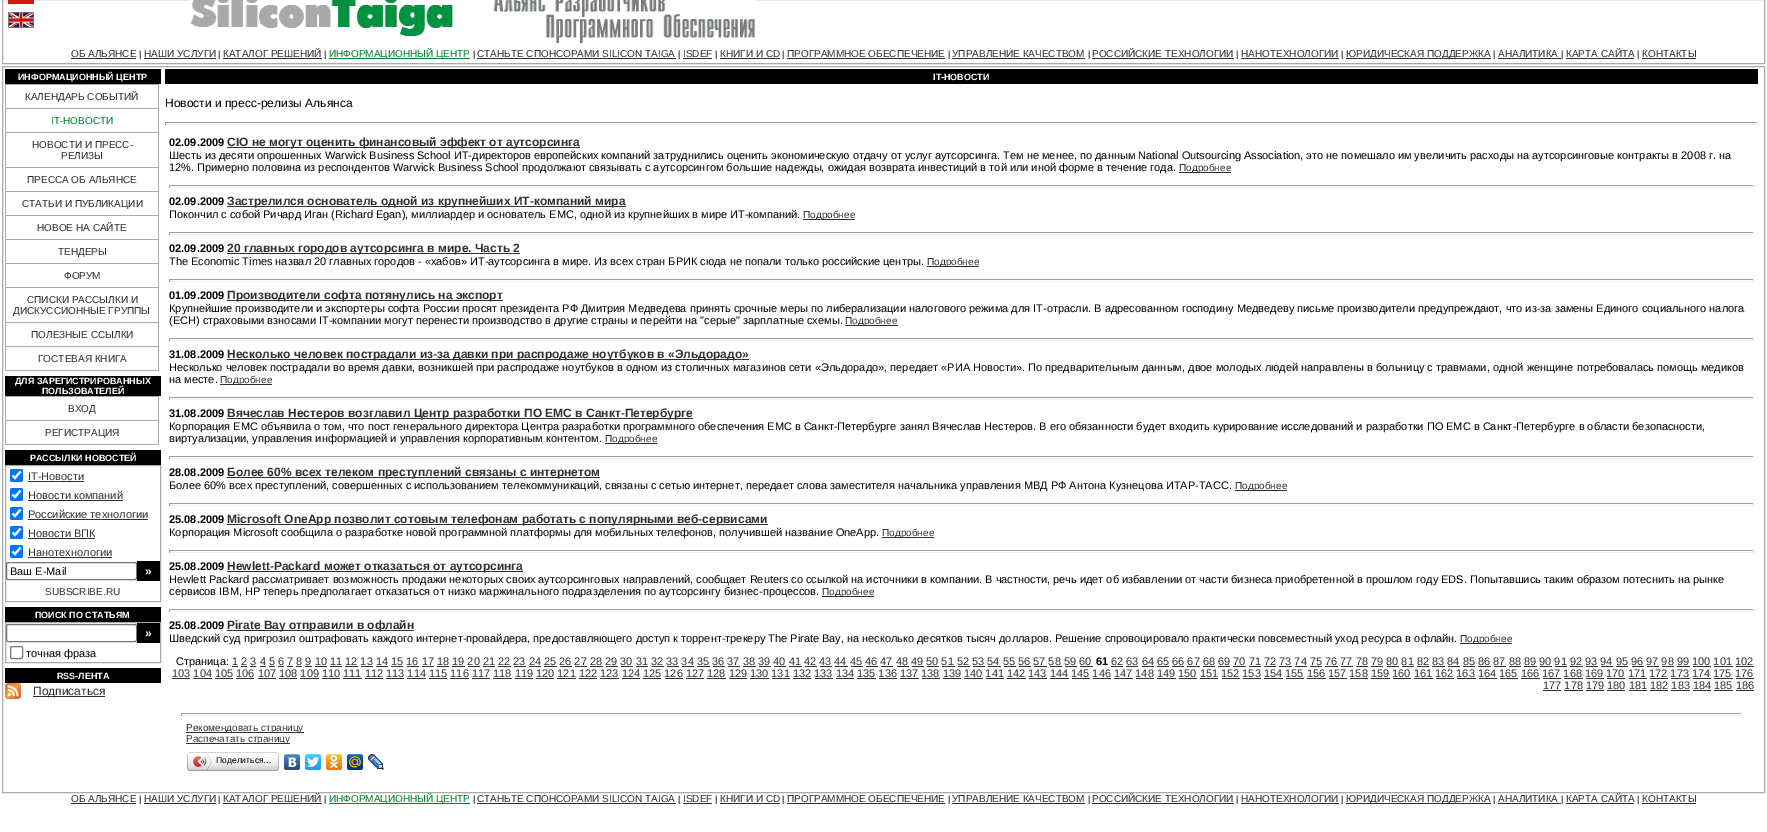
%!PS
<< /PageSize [1767 832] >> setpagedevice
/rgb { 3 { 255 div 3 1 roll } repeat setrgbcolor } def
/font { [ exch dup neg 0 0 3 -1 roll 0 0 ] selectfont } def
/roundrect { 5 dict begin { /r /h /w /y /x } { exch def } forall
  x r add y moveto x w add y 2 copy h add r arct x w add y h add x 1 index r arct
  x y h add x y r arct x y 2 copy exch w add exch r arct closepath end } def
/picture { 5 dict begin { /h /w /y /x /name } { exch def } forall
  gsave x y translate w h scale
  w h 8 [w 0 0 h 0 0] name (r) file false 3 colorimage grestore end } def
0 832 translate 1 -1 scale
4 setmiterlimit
255 255 255 rgb
0 0 1767 832 rectfill
170 170 170 rgb
2.5 -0.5 1762 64 rectstroke
215 21 13 rgb
8 0 26 4 rectfill
(img/1.rgb) 8 12 26 16 picture
(img/2.rgb) 190 0 566 43 picture
[
  [71 58 65 1 48 48 48]
  [144 58 72 1 48 48 48]
  [223 58 99 1 48 48 48]
  [329 58 141 1 0 130 48]
  [477 58 199 1 48 48 48]
  [683 58 29 1 48 48 48]
  [720 58 60 1 48 48 48]
  [787 58 158 1 48 48 48]
  [952 58 133 1 48 48 48]
  [1092 58 142 1 48 48 48]
  [1241 58 98 1 48 48 48]
  [1346 58 145 1 48 48 48]
  [1498 58 63 1 48 48 48]
  [1566 58 68 1 48 48 48]
  [1642 58 54 1 48 48 48]
] { aload pop rgb rectfill } forall
170 170 170 rgb
2.5 66.5 1762 726 rectstroke
[
  [5 69 156 15 0 0 0]
  [5 84 154 1 170 170 170]
  [158 84 1 287 170 170 170]
  [5 370 154 1 170 170 170]
  [5 84 1 287 170 170 170]
  [5 108 154 1 170 170 170]
  [5 132 154 1 170 170 170]
  [5 167 154 1 170 170 170]
  [5 191 154 1 170 170 170]
  [5 215 154 1 170 170 170]
  [5 239 154 1 170 170 170]
  [5 263 154 1 170 170 170]
  [5 287 154 1 170 170 170]
  [5 322 154 1 170 170 170]
  [5 346 154 1 170 170 170]
  [5 376 156 20 0 0 0]
  [5 396 154 1 170 170 170]
  [158 396 1 49 170 170 170]
  [5 444 154 1 170 170 170]
  [5 396 1 49 170 170 170]
  [5 420 154 1 170 170 170]
  [5 450 156 15 0 0 0]
] { aload pop rgb rectfill } forall
170 170 170 rgb
5.5 465.5 155 136 rectstroke
0 117 255 rgb
10 469 13 13 2 roundrect fill
255 255 255 rgb
2.1 setlinewidth
12.5 475.5 moveto 15 478 lineto 20.5 471.5 lineto stroke
48 48 48 rgb
28 481 56 1 rectfill
0 117 255 rgb
10 488 13 13 2 roundrect fill
255 255 255 rgb
12.5 494.5 moveto 15 497 lineto 20.5 490.5 lineto stroke
48 48 48 rgb
28 500 95 1 rectfill
0 117 255 rgb
10 507 13 13 2 roundrect fill
255 255 255 rgb
12.5 513.5 moveto 15 516 lineto 20.5 509.5 lineto stroke
48 48 48 rgb
28 519 120 1 rectfill
0 117 255 rgb
10 526 13 13 2 roundrect fill
255 255 255 rgb
12.5 532.5 moveto 15 535 lineto 20.5 528.5 lineto stroke
48 48 48 rgb
28 538 67 1 rectfill
0 117 255 rgb
10 545 13 13 2 roundrect fill
255 255 255 rgb
12.5 551.5 moveto 15 554 lineto 20.5 547.5 lineto stroke
48 48 48 rgb
28 557 84 1 rectfill
118 118 118 rgb
1 setlinewidth
6.5 562.5 130 17 1.5 roundrect stroke
0 0 0 rgb
137 561 23 20 rectfill
5 607 156 15 rectfill
170 170 170 rgb
5.5 622.5 155 40 rectstroke
118 118 118 rgb
6.5 624.5 130 17 1.5 roundrect stroke
0 0 0 rgb
137 623 23 20 rectfill
118 118 118 rgb
10.5 646.5 12 12 1.5 roundrect stroke
0 0 0 rgb
5 668 156 15 rectfill
(img/3.rgb) 5 683 16 16 picture
[
  [33 696 72 1 48 48 48]
  [165 69 1593 15 0 0 0]
  [165 122 1593 1 159 159 159]
  [1757 122 1 3 238 238 238]
  [165 124 1593 1 238 238 238]
  [165 122 1 3 159 159 159]
  [227 147 353 1 48 48 48]
  [1179 172 52 1 48 48 48]
  [169 185 1585 1 159 159 159]
  [1753 185 1 3 238 238 238]
  [169 187 1585 1 238 238 238]
  [169 185 1 3 159 159 159]
  [227 206 399 1 48 48 48]
  [803 219 52 1 48 48 48]
  [169 232 1585 1 159 159 159]
  [1753 232 1 3 238 238 238]
  [169 234 1585 1 238 238 238]
  [169 232 1 3 159 159 159]
  [227 253 293 1 48 48 48]
  [927 266 52 1 48 48 48]
  [169 279 1585 1 159 159 159]
  [1753 279 1 3 238 238 238]
  [169 281 1585 1 238 238 238]
  [169 279 1 3 159 159 159]
  [227 300 276 1 48 48 48]
  [845 325 53 1 48 48 48]
  [169 338 1585 1 159 159 159]
  [1753 338 1 3 238 238 238]
  [169 340 1585 1 238 238 238]
  [169 338 1 3 159 159 159]
  [227 359 522 1 48 48 48]
  [220 384 52 1 48 48 48]
  [169 397 1585 1 159 159 159]
  [1753 397 1 3 238 238 238]
  [169 399 1585 1 238 238 238]
  [169 397 1 3 159 159 159]
  [227 418 466 1 48 48 48]
  [605 443 52 1 48 48 48]
  [169 456 1585 1 159 159 159]
  [1753 456 1 3 238 238 238]
  [169 458 1585 1 238 238 238]
  [169 456 1 3 159 159 159]
  [227 477 373 1 48 48 48]
  [1235 490 52 1 48 48 48]
  [169 503 1585 1 159 159 159]
  [1753 503 1 3 238 238 238]
  [169 505 1585 1 238 238 238]
  [169 503 1 3 159 159 159]
  [227 524 541 1 48 48 48]
  [882 537 52 1 48 48 48]
  [169 550 1585 1 159 159 159]
  [1753 550 1 3 238 238 238]
  [169 552 1585 1 238 238 238]
  [169 550 1 3 159 159 159]
  [227 571 296 1 48 48 48]
  [822 596 52 1 48 48 48]
  [169 609 1585 1 159 159 159]
  [1753 609 1 3 238 238 238]
  [169 611 1585 1 238 238 238]
  [169 609 1 3 159 159 159]
  [227 630 187 1 48 48 48]
  [1460 643 52 1 48 48 48]
  [232 666 6 1 48 48 48]
  [1111 666 12 1 48 48 48]
  [241 666 6 1 48 48 48]
  [250 666 6 1 48 48 48]
  [260 666 6 1 48 48 48]
  [269 666 6 1 48 48 48]
  [278 666 6 1 48 48 48]
  [287 666 6 1 48 48 48]
  [296 666 6 1 48 48 48]
  [305 666 7 1 48 48 48]
  [315 666 12 1 48 48 48]
  [330 666 12 1 48 48 48]
  [345 666 13 1 48 48 48]
  [361 666 12 1 48 48 48]
  [376 666 12 1 48 48 48]
  [391 666 12 1 48 48 48]
  [407 666 12 1 48 48 48]
  [422 666 12 1 48 48 48]
  [437 666 12 1 48 48 48]
  [452 666 13 1 48 48 48]
  [468 666 12 1 48 48 48]
  [483 666 12 1 48 48 48]
  [498 666 13 1 48 48 48]
  [514 666 12 1 48 48 48]
  [529 666 12 1 48 48 48]
  [544 666 13 1 48 48 48]
  [560 666 12 1 48 48 48]
  [575 666 12 1 48 48 48]
  [590 666 13 1 48 48 48]
  [606 666 12 1 48 48 48]
  [621 666 12 1 48 48 48]
  [636 666 12 1 48 48 48]
  [652 666 12 1 48 48 48]
  [667 666 12 1 48 48 48]
  [682 666 12 1 48 48 48]
  [697 666 13 1 48 48 48]
  [713 666 12 1 48 48 48]
  [728 666 12 1 48 48 48]
  [743 666 13 1 48 48 48]
  [759 666 12 1 48 48 48]
  [774 666 12 1 48 48 48]
  [789 666 13 1 48 48 48]
  [805 666 12 1 48 48 48]
  [820 666 12 1 48 48 48]
  [835 666 13 1 48 48 48]
  [851 666 12 1 48 48 48]
  [866 666 12 1 48 48 48]
  [881 666 12 1 48 48 48]
  [897 666 12 1 48 48 48]
  [912 666 12 1 48 48 48]
  [927 666 12 1 48 48 48]
  [942 666 13 1 48 48 48]
  [958 666 12 1 48 48 48]
  [973 666 12 1 48 48 48]
  [988 666 13 1 48 48 48]
  [1004 666 12 1 48 48 48]
  [1019 666 12 1 48 48 48]
  [1034 666 13 1 48 48 48]
  [1050 666 12 1 48 48 48]
  [1065 666 12 1 48 48 48]
  [1080 666 13 1 48 48 48]
  [1126 666 12 1 48 48 48]
  [1142 666 12 1 48 48 48]
  [1157 666 12 1 48 48 48]
  [1172 666 12 1 48 48 48]
  [1187 666 13 1 48 48 48]
  [1203 666 12 1 48 48 48]
  [1218 666 12 1 48 48 48]
  [1233 666 13 1 48 48 48]
  [1249 666 12 1 48 48 48]
  [1264 666 12 1 48 48 48]
  [1279 666 13 1 48 48 48]
  [1295 666 12 1 48 48 48]
  [1310 666 12 1 48 48 48]
  [1325 666 13 1 48 48 48]
  [1341 666 12 1 48 48 48]
  [1356 666 12 1 48 48 48]
  [1371 666 12 1 48 48 48]
  [1387 666 12 1 48 48 48]
  [1402 666 12 1 48 48 48]
  [1417 666 12 1 48 48 48]
  [1432 666 13 1 48 48 48]
  [1448 666 12 1 48 48 48]
  [1463 666 12 1 48 48 48]
  [1478 666 13 1 48 48 48]
  [1494 666 12 1 48 48 48]
  [1509 666 12 1 48 48 48]
  [1524 666 13 1 48 48 48]
  [1540 666 12 1 48 48 48]
  [1555 666 12 1 48 48 48]
  [1570 666 13 1 48 48 48]
  [1586 666 12 1 48 48 48]
  [1601 666 12 1 48 48 48]
  [1616 666 12 1 48 48 48]
  [1632 666 12 1 48 48 48]
  [1647 666 12 1 48 48 48]
  [1662 666 12 1 48 48 48]
  [1677 666 13 1 48 48 48]
  [1693 666 18 1 48 48 48]
  [1714 666 19 1 48 48 48]
  [1736 666 18 1 48 48 48]
  [172 678 18 1 48 48 48]
  [193 678 19 1 48 48 48]
  [215 678 18 1 48 48 48]
  [236 678 18 1 48 48 48]
  [258 678 18 1 48 48 48]
  [279 678 18 1 48 48 48]
  [300 678 19 1 48 48 48]
  [322 678 18 1 48 48 48]
  [343 678 19 1 48 48 48]
  [365 678 18 1 48 48 48]
  [386 678 18 1 48 48 48]
  [407 678 19 1 48 48 48]
  [429 678 18 1 48 48 48]
  [450 678 19 1 48 48 48]
  [472 678 18 1 48 48 48]
  [493 678 19 1 48 48 48]
  [515 678 18 1 48 48 48]
  [536 678 18 1 48 48 48]
  [557 678 19 1 48 48 48]
  [579 678 18 1 48 48 48]
  [600 678 19 1 48 48 48]
  [622 678 18 1 48 48 48]
  [643 678 18 1 48 48 48]
  [665 678 18 1 48 48 48]
  [686 678 18 1 48 48 48]
  [707 678 19 1 48 48 48]
  [729 678 18 1 48 48 48]
  [750 678 19 1 48 48 48]
  [772 678 18 1 48 48 48]
  [793 678 18 1 48 48 48]
  [815 678 18 1 48 48 48]
  [836 678 18 1 48 48 48]
  [857 678 19 1 48 48 48]
  [879 678 18 1 48 48 48]
  [900 678 19 1 48 48 48]
  [922 678 18 1 48 48 48]
  [943 678 18 1 48 48 48]
  [964 678 19 1 48 48 48]
  [986 678 18 1 48 48 48]
  [1007 678 19 1 48 48 48]
  [1029 678 18 1 48 48 48]
  [1050 678 19 1 48 48 48]
  [1072 678 18 1 48 48 48]
  [1093 678 18 1 48 48 48]
  [1114 678 19 1 48 48 48]
  [1136 678 18 1 48 48 48]
  [1157 678 19 1 48 48 48]
  [1179 678 18 1 48 48 48]
  [1200 678 18 1 48 48 48]
  [1222 678 18 1 48 48 48]
  [1243 678 18 1 48 48 48]
  [1264 678 19 1 48 48 48]
  [1286 678 18 1 48 48 48]
  [1307 678 19 1 48 48 48]
  [1329 678 18 1 48 48 48]
  [1350 678 18 1 48 48 48]
  [1371 678 19 1 48 48 48]
  [1393 678 18 1 48 48 48]
  [1414 678 19 1 48 48 48]
  [1436 678 18 1 48 48 48]
  [1457 678 19 1 48 48 48]
  [1479 678 18 1 48 48 48]
  [1500 678 18 1 48 48 48]
  [1521 678 19 1 48 48 48]
  [1543 678 18 1 48 48 48]
  [1564 678 19 1 48 48 48]
  [1586 678 18 1 48 48 48]
  [1607 678 18 1 48 48 48]
  [1629 678 18 1 48 48 48]
  [1650 678 18 1 48 48 48]
  [1671 678 19 1 48 48 48]
  [1693 678 18 1 48 48 48]
  [1714 678 19 1 48 48 48]
  [1736 678 18 1 48 48 48]
  [1543 690 18 1 48 48 48]
  [1564 690 19 1 48 48 48]
  [1586 690 18 1 48 48 48]
  [1607 690 18 1 48 48 48]
  [1629 690 18 1 48 48 48]
  [1650 690 18 1 48 48 48]
  [1671 690 19 1 48 48 48]
  [1693 690 18 1 48 48 48]
  [1714 690 19 1 48 48 48]
  [1736 690 18 1 48 48 48]
  [181 713 1561 1 159 159 159]
  [1741 713 1 3 238 238 238]
  [181 715 1561 1 238 238 238]
  [181 713 1 3 159 159 159]
  [186 732 118 1 48 48 48]
  [186 743 104 1 48 48 48]
] { aload pop rgb rectfill } forall
(img/4.rgb) 190 752 86 19 picture
(img/5.rgb) 187 752 3 19 picture
(img/6.rgb) 193 753 20 17 picture
(img/7.rgb) 276 752 3 19 picture
(img/8.rgb) 284 754 16 16 picture
(img/9.rgb) 305 754 16 16 picture
(img/10.rgb) 326 754 16 16 picture
(img/11.rgb) 347 754 16 16 picture
(img/12.rgb) 368 754 16 16 picture
[
  [71 803 65 1 48 48 48]
  [144 803 72 1 48 48 48]
  [223 803 99 1 48 48 48]
  [329 803 141 1 0 130 48]
  [477 803 199 1 48 48 48]
  [683 803 29 1 48 48 48]
  [720 803 60 1 48 48 48]
  [787 803 158 1 48 48 48]
  [952 803 133 1 48 48 48]
  [1092 803 142 1 48 48 48]
  [1241 803 98 1 48 48 48]
  [1346 803 145 1 48 48 48]
  [1498 803 63 1 48 48 48]
  [1566 803 68 1 48 48 48]
  [1642 803 54 1 48 48 48]
] { aload pop rgb rectfill } forall
/LiberationSans-Regular 10 font
71 57 moveto (ОБ АЛЬЯНСЕ) show
/LiberationSans-Regular 9 font
0 0 0 rgb
139 57 moveto (|) show
/LiberationSans-Regular 10 font
48 48 48 rgb
144 57 moveto (НАШИ УСЛУГИ) show
/LiberationSans-Regular 9 font
0 0 0 rgb
218 57 moveto (|) show
/LiberationSans-Regular 10 font
48 48 48 rgb
223 57 moveto (КАТАЛОГ РЕШЕНИЙ) show
/LiberationSans-Regular 9 font
0 0 0 rgb
324 57 moveto (|) show
/LiberationSans-Regular 10 font
0 130 48 rgb
329 57 moveto (ИНФОРМАЦИОННЫЙ ЦЕНТР) show
/LiberationSans-Regular 9 font
0 0 0 rgb
473 57 moveto (|) show
/LiberationSans-Regular 10 font
48 48 48 rgb
477 57 moveto (СТАНЬТЕ СПОНСОРАМИ SILICON TAIGA) show
/LiberationSans-Regular 9 font
0 0 0 rgb
678 57 moveto (|) show
/LiberationSans-Regular 10 font
48 48 48 rgb
683 57 moveto (ISDEF) show
/LiberationSans-Regular 9 font
0 0 0 rgb
715 57 moveto (|) show
/LiberationSans-Regular 10 font
48 48 48 rgb
720 57 moveto (КНИГИ И CD) show
/LiberationSans-Regular 9 font
0 0 0 rgb
782 57 moveto (|) show
/LiberationSans-Regular 10 font
48 48 48 rgb
787 57 moveto (ПРОГРАММНОЕ ОБЕСПЕЧЕНИЕ) show
/LiberationSans-Regular 9 font
0 0 0 rgb
948 57 moveto (|) show
/LiberationSans-Regular 10 font
48 48 48 rgb
952 57 moveto (УПРАВЛЕНИЕ КАЧЕСТВОМ) show
/LiberationSans-Regular 9 font
0 0 0 rgb
1088 57 moveto (|) show
/LiberationSans-Regular 10 font
48 48 48 rgb
1092 57 moveto (РОССИЙСКИЕ ТЕХНОЛОГИИ) show
/LiberationSans-Regular 9 font
0 0 0 rgb
1236 57 moveto (|) show
/LiberationSans-Regular 10 font
48 48 48 rgb
1241 57 moveto (НАНОТЕХНОЛОГИИ) show
/LiberationSans-Regular 9 font
0 0 0 rgb
1341 57 moveto (|) show
/LiberationSans-Regular 10 font
48 48 48 rgb
1346 57 moveto (ЮРИДИЧЕСКАЯ ПОДДЕРЖКА) show
/LiberationSans-Regular 9 font
0 0 0 rgb
1493 57 moveto (|) show
/LiberationSans-Regular 10 font
48 48 48 rgb
1498 57 moveto (АНАЛИТИКА) show
/LiberationSans-Regular 9 font
0 0 0 rgb
1561 57 moveto (|) show
/LiberationSans-Regular 10 font
48 48 48 rgb
1566 57 moveto (КАРТА САЙТА) show
/LiberationSans-Regular 9 font
0 0 0 rgb
1637 57 moveto (|) show
/LiberationSans-Regular 10 font
48 48 48 rgb
1642 57 moveto (КОНТАКТЫ) show
/LiberationSans-Bold 9 font
255 255 255 rgb
18 80 moveto (ИНФОРМАЦИОННЫЙ ЦЕНТР) show
/LiberationSans-Regular 10 font
48 48 48 rgb
25 100 moveto (КАЛЕНДАРЬ СОБЫТИЙ) show
0 130 48 rgb
51 124 moveto (IT-НОВОСТИ) show
48 48 48 rgb
[
  [(НОВОСТИ И ПРЕСС-) 32 148]
  [(РЕЛИЗЫ) 61 159]
  [(ПРЕССА ОБ АЛЬЯНСЕ) 27 183]
  [(СТАТЬИ И ПУБЛИКАЦИИ) 22 207]
  [(НОВОЕ НА САЙТЕ) 37 231]
  [(ТЕНДЕРЫ) 58 255]
  [(ФОРУМ) 64 279]
  [(СПИСКИ РАССЫЛКИ И) 27 303]
  [(ДИСКУССИОННЫЕ ГРУППЫ) 13 314]
  [(ПОЛЕЗНЫЕ ССЫЛКИ) 31 338]
  [(ГОСТЕВАЯ КНИГА) 38 362]
] { aload pop moveto show } forall
/LiberationSans-Bold 9 font
255 255 255 rgb
15 384 moveto (ДЛЯ ЗАРЕГИСТРИРОВАННЫХ) show
42 394 moveto (ПОЛЬЗОВАТЕЛЕЙ) show
/LiberationSans-Regular 10 font
48 48 48 rgb
68 412 moveto (ВХОД) show
45 436 moveto (РЕГИСТРАЦИЯ) show
/LiberationSans-Bold 9 font
255 255 255 rgb
30 461 moveto (РАССЫЛКИ НОВОСТЕЙ) show
/LiberationSans-Regular 11 font
48 48 48 rgb
[
  [(IT-Новости) 28 480]
  [(Новости компаний) 28 499]
  [(Российские технологии) 28 518]
  [(Новости ВПК) 28 537]
  [(Нанотехнологии) 28 556]
] { aload pop moveto show } forall
0 0 0 rgb
10 575 moveto (Ваш E-Mail) show
/LiberationSans-Bold 12 font
255 255 255 rgb
145 575 moveto (») show
/LiberationSans-Regular 10 font
48 48 48 rgb
45 595 moveto (SUBSCRIBE.RU) show
/LiberationSans-Bold 9 font
255 255 255 rgb
35 618 moveto (ПОИСК ПО СТАТЬЯМ) show
/LiberationSans-Bold 12 font
145 637 moveto (») show
/LiberationSans-Regular 11 font
0 0 0 rgb
26 657 moveto (точная фраза) show
/LiberationSans-Bold 9 font
255 255 255 rgb
57 679 moveto (RSS-ЛЕНТА) show
/LiberationSans-Regular 12 font
48 48 48 rgb
33 695 moveto (Подписаться) show
/LiberationSans-Bold 9 font
255 255 255 rgb
933 80 moveto (IT-НОВОСТИ) show
/LiberationSans-Regular 12 font
0 0 0 rgb
165 107 moveto (Новости и пресс-релизы Альянса) show
/LiberationSans-Bold 11 font
169 146 moveto (02.09.2009) show
/LiberationSans-Bold 12 font
48 48 48 rgb
227 146 moveto (CIO не могут оценить финансовый эффект от аутсорсинга) show
/LiberationSans-Regular 11 font
0 0 0 rgb
169 159 moveto (Шесть из десяти опрошенных Warwick Business School ИТ-директоров европейских компаний затруднились оценить экономическую отдачу от услуг аутсорсинга. Тем не менее, по данным National Outsourcing Association, это не помешало им увеличить расходы на аутсорсинговые контракты в 2008 г. на) show
169 171 moveto (12%. Примерно половина из респондентов Warwick Business School продолжают связывать с аутсорсингом большие надежды, ожидая возврата инвестиций в той или иной форме в течение года.) show
/LiberationSans-Regular 10 font
48 48 48 rgb
1179 171 moveto (Подробнее) show
/LiberationSans-Bold 11 font
0 0 0 rgb
169 205 moveto (02.09.2009) show
/LiberationSans-Bold 12 font
48 48 48 rgb
227 205 moveto (Застрелился основатель одной из крупнейших ИТ-компаний мира) show
/LiberationSans-Regular 11 font
0 0 0 rgb
169 218 moveto (Покончил с собой Ричард Иган \(Richard Egan\), миллиардер и основатель EMC, одной из крупнейших в мире ИТ-компаний.) show
/LiberationSans-Regular 10 font
48 48 48 rgb
803 218 moveto (Подробнее) show
/LiberationSans-Bold 11 font
0 0 0 rgb
169 252 moveto (02.09.2009) show
/LiberationSans-Bold 12 font
48 48 48 rgb
227 252 moveto (20 главных городов аутсорсинга в мире. Часть 2) show
/LiberationSans-Regular 11 font
0 0 0 rgb
169 265 moveto (The Economic Times назвал 20 главных городов - «хабов» ИТ-аутсорсинга в мире. Из всех стран БРИК сюда не попали только российские центры.) show
/LiberationSans-Regular 10 font
48 48 48 rgb
927 265 moveto (Подробнее) show
/LiberationSans-Bold 11 font
0 0 0 rgb
169 299 moveto (01.09.2009) show
/LiberationSans-Bold 12 font
48 48 48 rgb
227 299 moveto (Производители софта потянулись на экспорт) show
/LiberationSans-Regular 11 font
0 0 0 rgb
169 312 moveto (Крупнейшие производители и экспортеры софта России просят президента РФ Дмитрия Медведева принять срочные меры по либерализации налогового режима для IT-отрасли. В адресованном господину Медведеву письме производители предупреждают, что из-за замены Единого социального налога) show
169 324 moveto (\(ЕСН\) страховыми взносами IT-компании могут перенести производство в другие страны и перейти на "серые" зарплатные схемы.) show
/LiberationSans-Regular 10 font
48 48 48 rgb
845 324 moveto (Подробнее) show
/LiberationSans-Bold 11 font
0 0 0 rgb
169 358 moveto (31.08.2009) show
/LiberationSans-Bold 12 font
48 48 48 rgb
227 358 moveto (Несколько человек пострадали из-за давки при распродаже ноутбуков в «Эльдорадо») show
/LiberationSans-Regular 11 font
0 0 0 rgb
169 371 moveto (Несколько человек пострадали во время давки, возникшей при распродаже ноутбуков в одном из столичных магазинов сети «Эльдорадо», передает «РИА Новости». По предварительным данным, двое молодых людей направлены в больницу с травмами, одной женщине потребовалась помощь медиков) show
169 383 moveto (на месте.) show
/LiberationSans-Regular 10 font
48 48 48 rgb
220 383 moveto (Подробнее) show
/LiberationSans-Bold 11 font
0 0 0 rgb
169 417 moveto (31.08.2009) show
/LiberationSans-Bold 12 font
48 48 48 rgb
227 417 moveto (Вячеслав Нестеров возглавил Центр разработки ПО EMC в Санкт-Петербурге) show
/LiberationSans-Regular 11 font
0 0 0 rgb
169 430 moveto (Корпорация EMC объявила о том, что пост генерального директора Центра разработки программного обеспечения ЕМС в Санкт-Петербурге занял Вячеслав Нестеров. В его обязанности будет входить курирование исследований и разработки ПО EMC в Санкт-Петербурге в области безопасности,) show
169 442 moveto (виртуализации, управления информацией и управления корпоративным контентом.) show
/LiberationSans-Regular 10 font
48 48 48 rgb
605 442 moveto (Подробнее) show
/LiberationSans-Bold 11 font
0 0 0 rgb
169 476 moveto (28.08.2009) show
/LiberationSans-Bold 12 font
48 48 48 rgb
227 476 moveto (Более 60% всех телеком преступлений связаны с интернетом) show
/LiberationSans-Regular 11 font
0 0 0 rgb
169 489 moveto (Более 60% всех преступлений, совершенных с использованием телекоммуникаций, связаны с сетью интернет, передает слова заместителя начальника управления МВД РФ Антона Кузнецова ИТАР-ТАСС.) show
/LiberationSans-Regular 10 font
48 48 48 rgb
1235 489 moveto (Подробнее) show
/LiberationSans-Bold 11 font
0 0 0 rgb
169 523 moveto (25.08.2009) show
/LiberationSans-Bold 12 font
48 48 48 rgb
227 523 moveto (Microsoft OneApp позволит сотовым телефонам работать с популярными веб-сервисами) show
/LiberationSans-Regular 11 font
0 0 0 rgb
169 536 moveto (Корпорация Microsoft сообщила о разработке новой программной платформы для мобильных телефонов, получившей название OneApp.) show
/LiberationSans-Regular 10 font
48 48 48 rgb
882 536 moveto (Подробнее) show
/LiberationSans-Bold 11 font
0 0 0 rgb
169 570 moveto (25.08.2009) show
/LiberationSans-Bold 12 font
48 48 48 rgb
227 570 moveto (Hewlett-Packard может отказаться от аутсорсинга) show
/LiberationSans-Regular 11 font
0 0 0 rgb
169 583 moveto (Hewlett Packard рассматривает возможность продажи некоторых своих аутсорсинговых направлений, сообщает Reuters со ссылкой на источники в компании. В частности, речь идет об избавлении от части бизнеса приобретенной в прошлом году EDS. Попытавшись таким образом потеснить на рынке) show
169 595 moveto (сервисов IBM, НР теперь предполагает отказаться от низко маржинального подразделения по аутсорсингу бизнес-процессов.) show
/LiberationSans-Regular 10 font
48 48 48 rgb
822 595 moveto (Подробнее) show
/LiberationSans-Bold 11 font
0 0 0 rgb
169 629 moveto (25.08.2009) show
/LiberationSans-Bold 12 font
48 48 48 rgb
227 629 moveto (Pirate Bay отправили в офлайн) show
/LiberationSans-Regular 11 font
0 0 0 rgb
169 642 moveto (Шведский суд пригрозил оштрафовать каждого интернет-провайдера, предоставляющего доступ к торрент-трекеру The Pirate Bay, на несколько десятков тысяч долларов. Решение спровоцировало практически повсеместный уход ресурса в офлайн.) show
/LiberationSans-Regular 10 font
48 48 48 rgb
1460 642 moveto (Подробнее) show
/LiberationSans-Regular 11 font
0 0 0 rgb
176 665 moveto (Страница:) show
48 48 48 rgb
232 665 moveto (1 2 3 4 5 6 7 8 9 10 11 12 13 14 15 16 17 18 19 20 21 22 23 24 25 26 27 28 29 30 31 32 33 34 35 36 37 38 39 40 41 42 43 44 45 46 47 48 49 50 51 52 53 54 55 56 57 58 59 60) show
/LiberationSans-Bold 11 font
0 0 0 rgb
1096 665 moveto (61) show
/LiberationSans-Regular 11 font
48 48 48 rgb
[
  [(62 63 64 65 66 67 68 69 70 71 72 73 74 75 76 77 78 79 80 81 82 83 84 85 86 87 88 89 90 91 92 93 94 95 96 97 98 99 100 101 102) 1111 665]
  [(103 104 105 106 107 108 109 110 111 112 113 114 115 116 117 118 119 120 121 122 123 124 125 126 127 128 129 130 131 132 133 134 135 136 137 138 139 140 141 142 143 144 145 146 147 148 149 150 151 152 153 154 155 156 157 158 159 160 161 162 163 164 165 166 167 168 169 170 171 172 173 174 175 176) 172 677]
  [(177 178 179 180 181 182 183 184 185 186) 1543 689]
] { aload pop moveto show } forall
/LiberationSans-Regular 10 font
186 731 moveto (Рекомендовать страницу) show
186 742 moveto (Распечатать страницу) show
/LiberationSans-Regular 8.5 font
0 0 0 rgb
216 763 moveto (Поделиться…) show
/LiberationSans-Regular 10 font
48 48 48 rgb
71 802 moveto (ОБ АЛЬЯНСЕ) show
/LiberationSans-Regular 9 font
0 0 0 rgb
139 802 moveto (|) show
/LiberationSans-Regular 10 font
48 48 48 rgb
144 802 moveto (НАШИ УСЛУГИ) show
/LiberationSans-Regular 9 font
0 0 0 rgb
218 802 moveto (|) show
/LiberationSans-Regular 10 font
48 48 48 rgb
223 802 moveto (КАТАЛОГ РЕШЕНИЙ) show
/LiberationSans-Regular 9 font
0 0 0 rgb
324 802 moveto (|) show
/LiberationSans-Regular 10 font
0 130 48 rgb
329 802 moveto (ИНФОРМАЦИОННЫЙ ЦЕНТР) show
/LiberationSans-Regular 9 font
0 0 0 rgb
473 802 moveto (|) show
/LiberationSans-Regular 10 font
48 48 48 rgb
477 802 moveto (СТАНЬТЕ СПОНСОРАМИ SILICON TAIGA) show
/LiberationSans-Regular 9 font
0 0 0 rgb
678 802 moveto (|) show
/LiberationSans-Regular 10 font
48 48 48 rgb
683 802 moveto (ISDEF) show
/LiberationSans-Regular 9 font
0 0 0 rgb
715 802 moveto (|) show
/LiberationSans-Regular 10 font
48 48 48 rgb
720 802 moveto (КНИГИ И CD) show
/LiberationSans-Regular 9 font
0 0 0 rgb
782 802 moveto (|) show
/LiberationSans-Regular 10 font
48 48 48 rgb
787 802 moveto (ПРОГРАММНОЕ ОБЕСПЕЧЕНИЕ) show
/LiberationSans-Regular 9 font
0 0 0 rgb
948 802 moveto (|) show
/LiberationSans-Regular 10 font
48 48 48 rgb
952 802 moveto (УПРАВЛЕНИЕ КАЧЕСТВОМ) show
/LiberationSans-Regular 9 font
0 0 0 rgb
1088 802 moveto (|) show
/LiberationSans-Regular 10 font
48 48 48 rgb
1092 802 moveto (РОССИЙСКИЕ ТЕХНОЛОГИИ) show
/LiberationSans-Regular 9 font
0 0 0 rgb
1236 802 moveto (|) show
/LiberationSans-Regular 10 font
48 48 48 rgb
1241 802 moveto (НАНОТЕХНОЛОГИИ) show
/LiberationSans-Regular 9 font
0 0 0 rgb
1341 802 moveto (|) show
/LiberationSans-Regular 10 font
48 48 48 rgb
1346 802 moveto (ЮРИДИЧЕСКАЯ ПОДДЕРЖКА) show
/LiberationSans-Regular 9 font
0 0 0 rgb
1493 802 moveto (|) show
/LiberationSans-Regular 10 font
48 48 48 rgb
1498 802 moveto (АНАЛИТИКА) show
/LiberationSans-Regular 9 font
0 0 0 rgb
1561 802 moveto (|) show
/LiberationSans-Regular 10 font
48 48 48 rgb
1566 802 moveto (КАРТА САЙТА) show
/LiberationSans-Regular 9 font
0 0 0 rgb
1637 802 moveto (|) show
/LiberationSans-Regular 10 font
48 48 48 rgb
1642 802 moveto (КОНТАКТЫ) show
showpage
